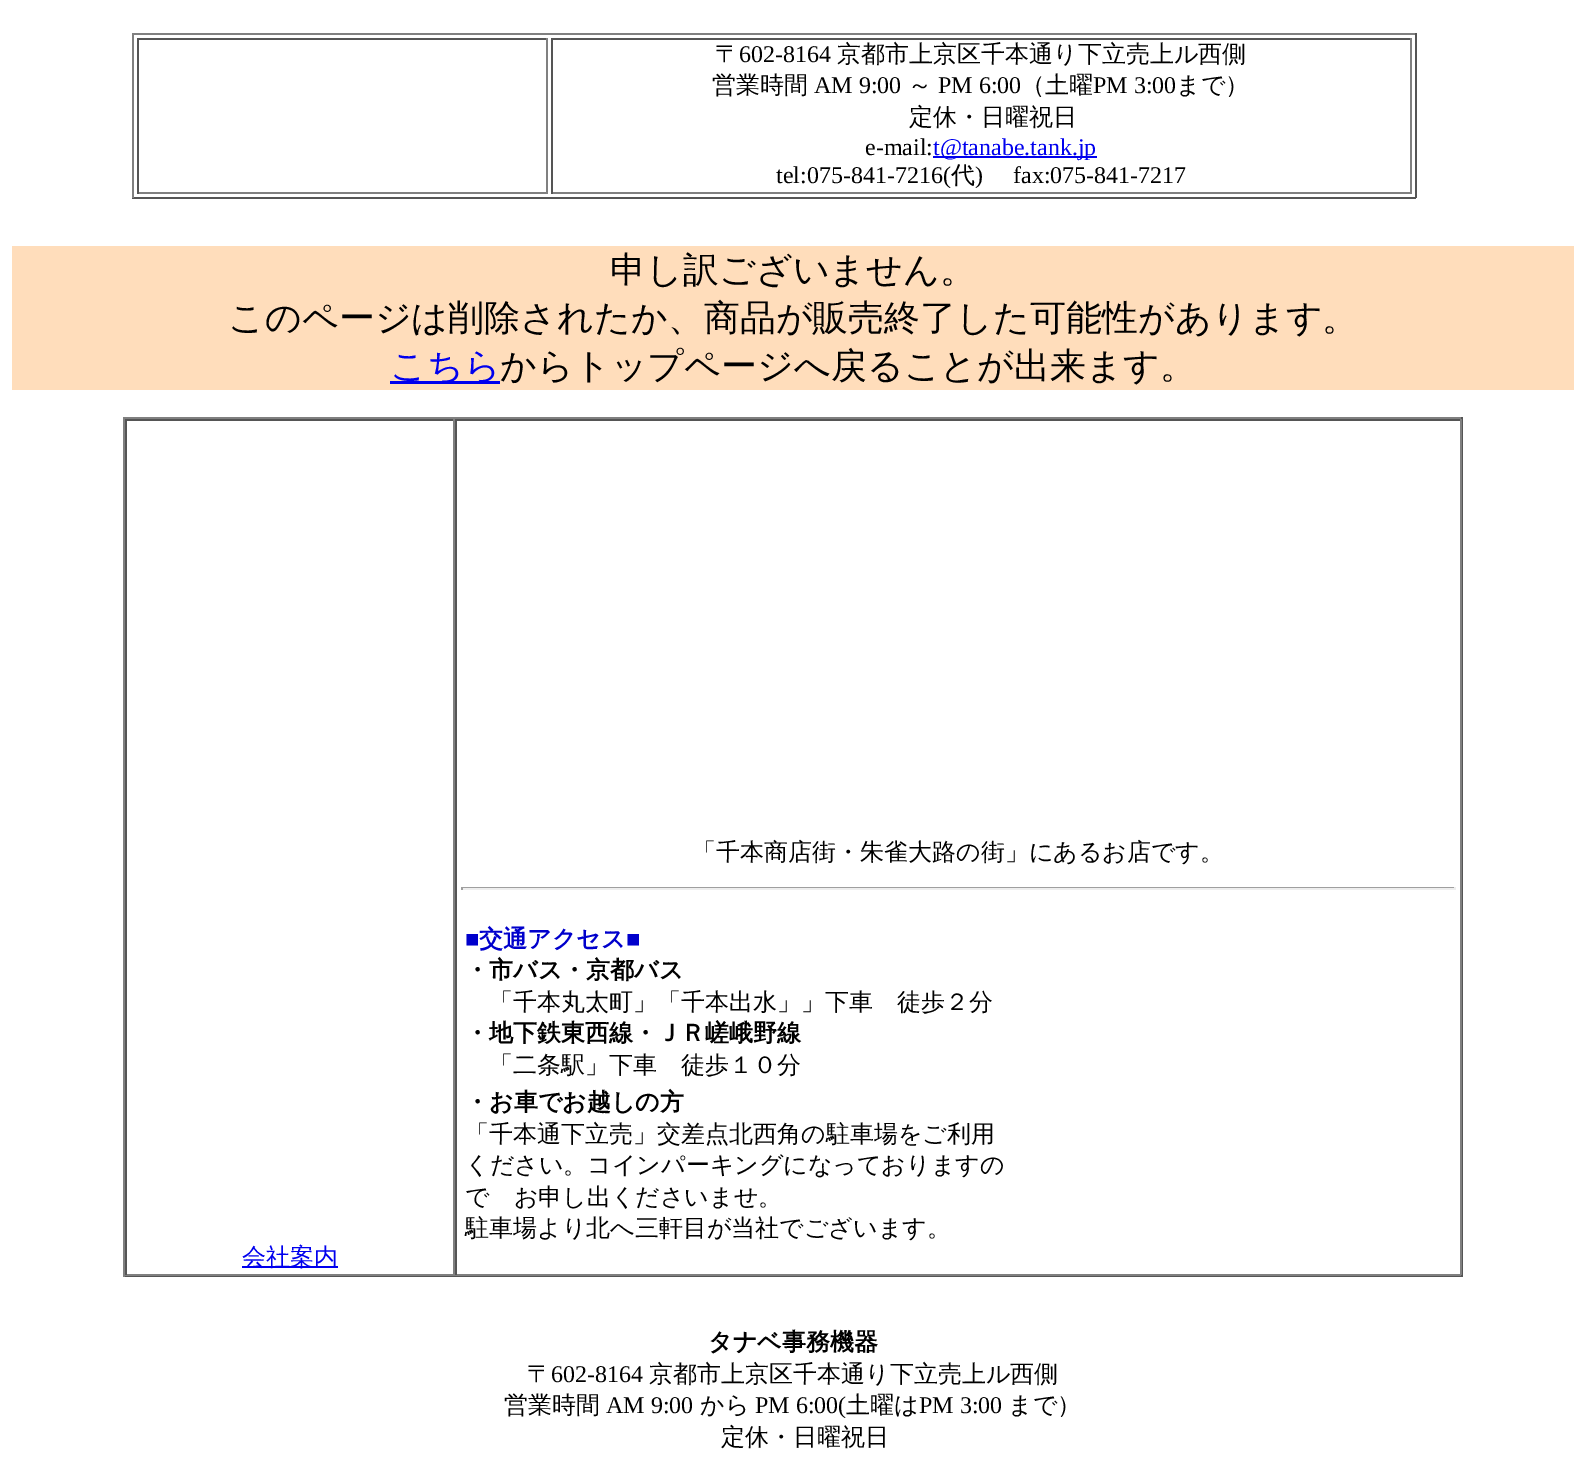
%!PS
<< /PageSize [1585 1464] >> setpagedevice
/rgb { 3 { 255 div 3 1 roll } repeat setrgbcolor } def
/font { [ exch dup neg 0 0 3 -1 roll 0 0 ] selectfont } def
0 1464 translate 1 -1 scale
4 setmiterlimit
255 255 255 rgb
0 0 1585 1464 rectfill
[
  [132 33 1284 2 128 128 128]
  [1415 33 2 165 85 85 85]
  [132 197 1284 2 85 85 85]
  [132 33 2 165 128 128 128]
  [137 38 411 2 85 85 85]
  [546 38 2 156 128 128 128]
  [137 192 411 2 128 128 128]
  [137 38 2 156 85 85 85]
  [551 38 861 2 85 85 85]
  [1410 38 2 156 128 128 128]
  [551 192 861 2 128 128 128]
  [551 38 2 156 85 85 85]
  [933 156 164 2 0 0 238]
  [12 246 1562 144 255 221 187]
  [390 381 110 3 0 0 238]
  [123 417 1340 2 128 128 128]
  [1461 417 2 860 85 85 85]
  [123 1275 1340 2 85 85 85]
  [123 417 2 860 128 128 128]
  [125 419 1336 2 85 85 85]
  [1460 419 2 856 128 128 128]
  [455 1274 1006 2 128 128 128]
  [455 419 2 856 85 85 85]
  [461 887 994 1 159 159 159]
  [1454 887 2 3 238 238 238]
  [461 888 994 2 238 238 238]
  [461 887 2 3 159 159 159]
  [453 419 2 856 128 128 128]
  [125 1274 330 2 128 128 128]
  [125 419 2 856 85 85 85]
  [242 1266 96 2 0 0 238]
] { aload pop rgb rectfill } forall
/WenQuanYiZenHei-Medium 24 font
0 0 0 rgb
715 62 moveto (〒) show
/LiberationSerif-Regular 24 font
739 62 moveto (602-8164) show
/WenQuanYiZenHei-Medium 24 font
837 62 moveto (京都市上京区千本通り下立売上ル西側) show
712 93 moveto (営業時間) show
/LiberationSerif-Regular 24 font
814 93 moveto (AM 9:00) show
/WenQuanYiZenHei-Medium 24 font
908 93 moveto (～) show
/LiberationSerif-Regular 24 font
938 93 moveto (PM 6:00) show
/WenQuanYiZenHei-Medium 24 font
1021 93 moveto (（土曜) show
/LiberationSerif-Regular 24 font
1093 93 moveto (PM 3:00) show
/WenQuanYiZenHei-Medium 24 font
1176 93 moveto (まで）) show
909 125 moveto (定休・日曜祝日) show
/LiberationSerif-Regular 24 font
865 155 moveto (e-mail:) show
0 0 238 rgb
933 155 moveto (t@tanabe.tank.jp) show
0 0 0 rgb
776 183 moveto (tel:075-841-7216\() show
/WenQuanYiZenHei-Medium 24 font
951 183 moveto (代) show
/LiberationSerif-Regular 24 font
975 183 moveto (\)) show
1013 183 moveto (fax:075-841-7217) show
/WenQuanYiZenHei-Medium 36 font
610 282 moveto (申し訳ございません。) show
228 330 moveto (このページは削除されたか、商品が販売終了した可能性があります。) show
0 0 238 rgb
390 378 moveto (こちら) show
0 0 0 rgb
500 378 moveto (からトップページへ戻ることが出来ます。) show
/WenQuanYiZenHei-Medium 24 font
692 860 moveto (「千本商店街・朱雀大路の街」にあるお店です。) show
/LiberationSerif-Bold 24 font
0 0 204 rgb
465 947 moveto (■) show
/WenQuanYiZenHei-Bold 24 font
479 947 moveto (交通アクセス) show
/LiberationSerif-Bold 24 font
626 947 moveto (■) show
/WenQuanYiZenHei-Bold 24 font
0 0 0 rgb
465 978 moveto (・市バス・京都バス) show
/WenQuanYiZenHei-Medium 24 font
489 1010 moveto (「千本丸太町」「千本出水」」下車　徒歩２分) show
/WenQuanYiZenHei-Bold 24 font
465 1041 moveto (・地下鉄東西線・ＪＲ嵯峨野線) show
/WenQuanYiZenHei-Medium 24 font
489 1073 moveto (「二条駅」下車　徒歩１０分) show
/WenQuanYiZenHei-Bold 24 font
465 1110 moveto (・お車でお越しの方) show
/WenQuanYiZenHei-Medium 24 font
[
  [(「千本通下立売」交差点北西角の駐車場をご利用) 465 1142]
  [(ください。コインパーキングになっておりますの) 465 1173]
  [(で　お申し出くださいませ。) 465 1205]
  [(駐車場より北へ三軒目が当社でございます。) 465 1236]
] { aload pop moveto show } forall
0 0 238 rgb
242 1265 moveto (会社案内) show
/WenQuanYiZenHei-Bold 24 font
0 0 0 rgb
708 1350 moveto (タナベ事務機器) show
/WenQuanYiZenHei-Medium 24 font
527 1382 moveto (〒) show
/LiberationSerif-Regular 24 font
551 1382 moveto (602-8164) show
/WenQuanYiZenHei-Medium 24 font
649 1382 moveto (京都市上京区千本通り下立売上ル西側) show
504 1413 moveto (営業時間) show
/LiberationSerif-Regular 24 font
606 1413 moveto (AM 9:00) show
/WenQuanYiZenHei-Medium 24 font
700 1413 moveto (から) show
/LiberationSerif-Regular 24 font
755 1413 moveto (PM 6:00\() show
/WenQuanYiZenHei-Medium 24 font
846 1413 moveto (土曜は) show
/LiberationSerif-Regular 24 font
919 1413 moveto (PM 3:00) show
/WenQuanYiZenHei-Medium 24 font
1008 1413 moveto (まで）) show
721 1445 moveto (定休・日曜祝日) show
showpage
